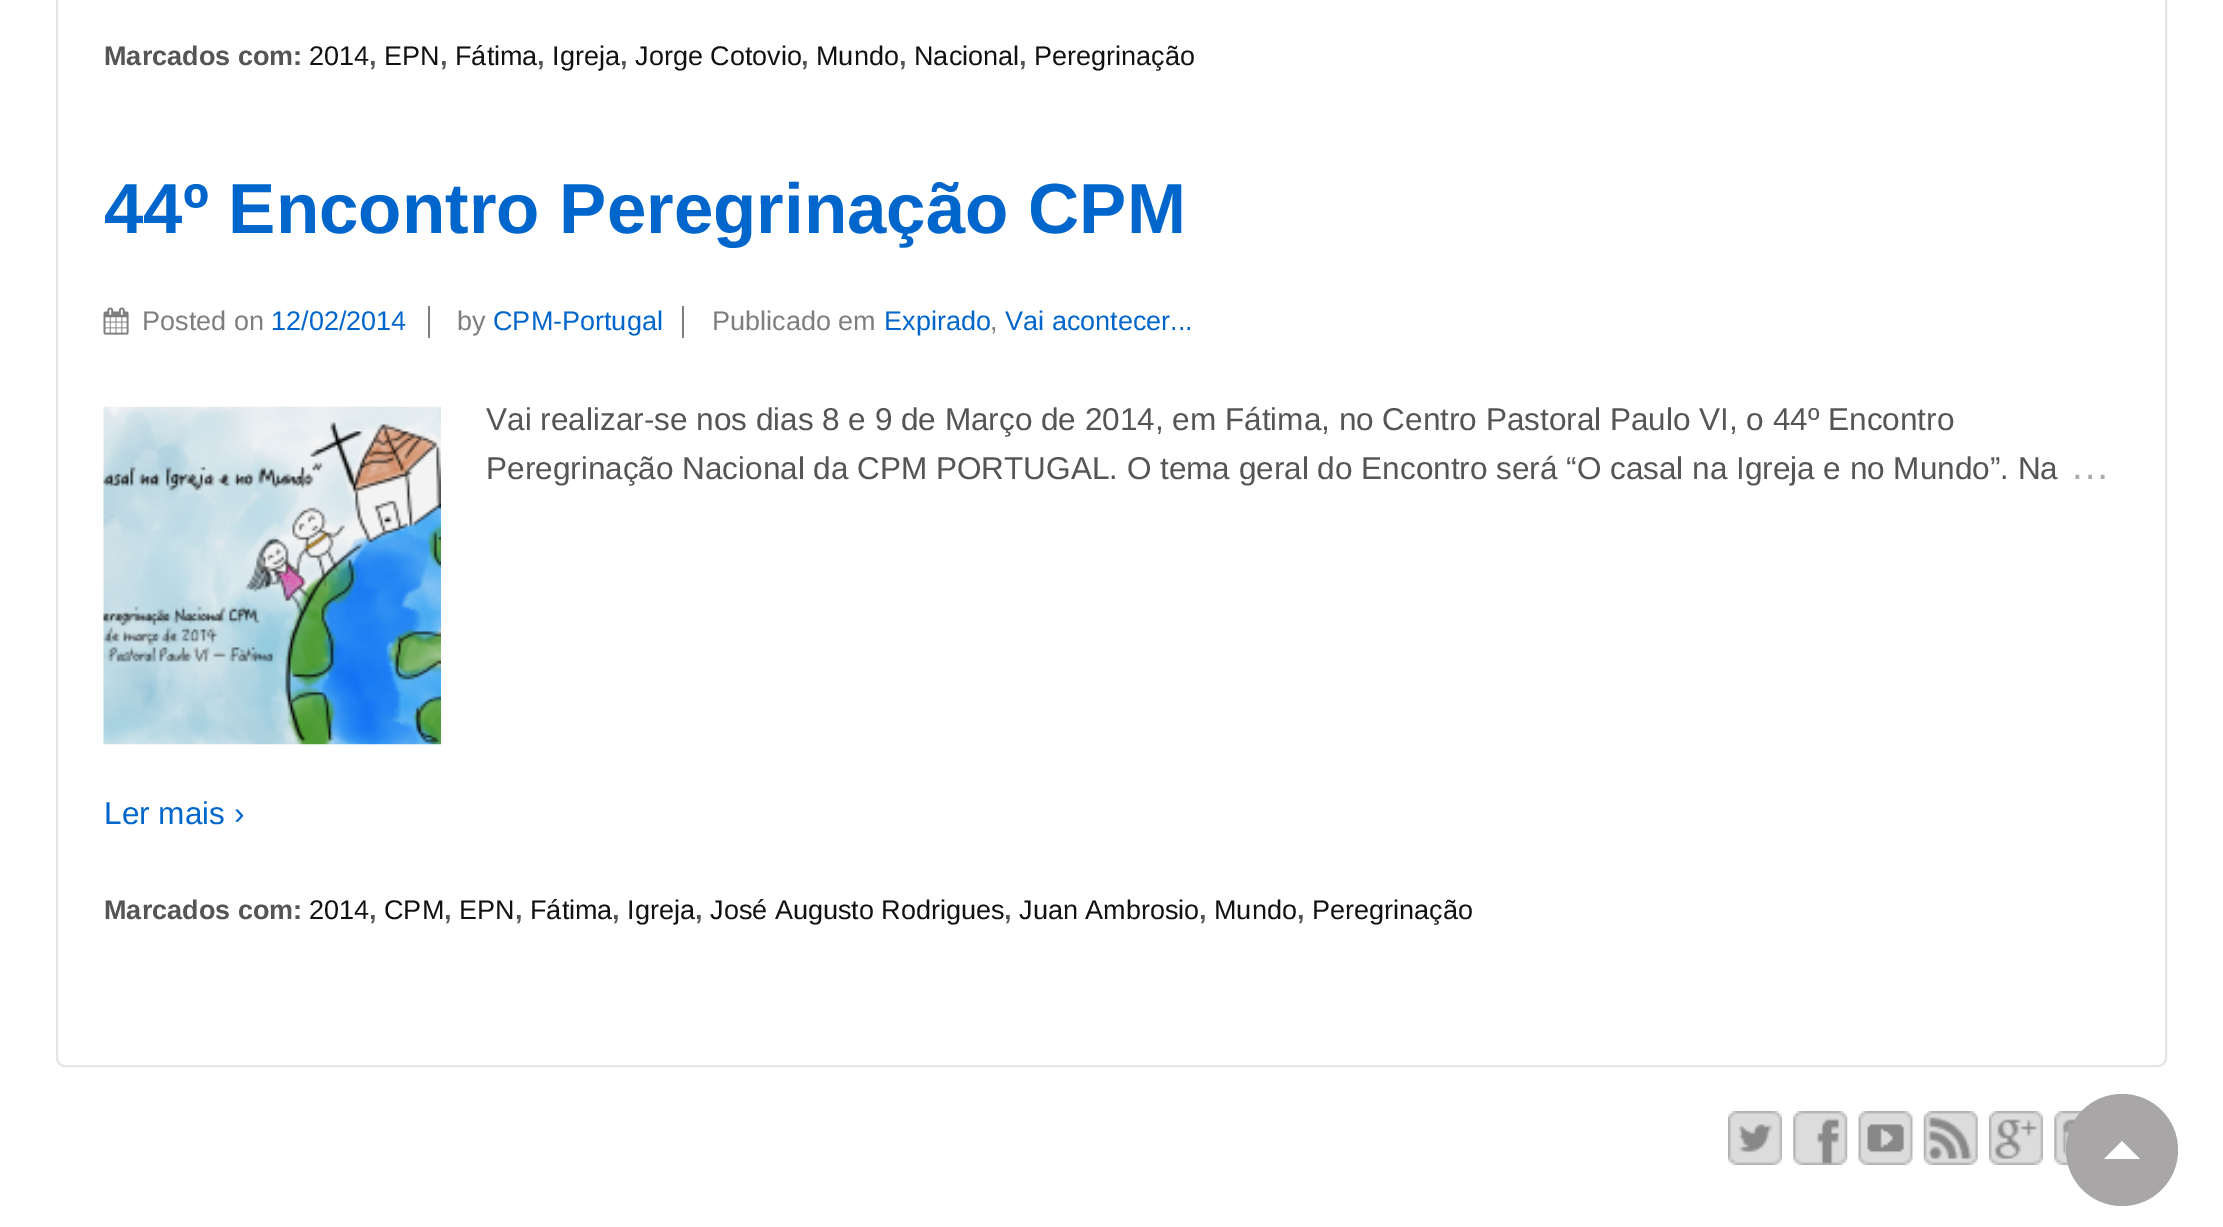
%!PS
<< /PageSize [2223 1227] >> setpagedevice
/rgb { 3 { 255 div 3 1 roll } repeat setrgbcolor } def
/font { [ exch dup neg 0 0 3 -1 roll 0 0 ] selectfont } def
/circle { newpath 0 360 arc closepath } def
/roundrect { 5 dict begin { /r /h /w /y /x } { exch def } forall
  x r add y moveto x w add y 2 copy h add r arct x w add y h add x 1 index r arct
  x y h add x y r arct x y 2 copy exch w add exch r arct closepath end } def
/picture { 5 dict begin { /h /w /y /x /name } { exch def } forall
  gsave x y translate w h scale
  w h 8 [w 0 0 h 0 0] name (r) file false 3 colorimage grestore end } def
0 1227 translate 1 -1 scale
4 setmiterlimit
255 255 255 rgb
0 0 2223 1227 rectfill
229 229 229 rgb
2 setlinewidth
57 -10 2109 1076 8 roundrect stroke
(img/1.rgb) 103 307 26 28 picture
126 126 126 rgb
428 306 2 32 rectfill
682 306 2 32 rectfill
(img/2.rgb) 103 406 338 339 picture
(img/3.rgb) 1728 1111 54 54 picture
(img/4.rgb) 1793 1111 55 54 picture
(img/5.rgb) 1858 1111 55 54 picture
(img/6.rgb) 1923 1111 55 54 picture
(img/7.rgb) 1989 1111 54 54 picture
(img/8.rgb) 2054 1111 28 54 picture
168 166 166 rgb
2122 1150 56 circle fill
255 255 255 rgb
2140 1159 moveto 2104 1159 lineto 2122 1141 lineto closepath fill
/LiberationSans-Bold 27 font
85 85 85 rgb
104 65 moveto (Marcados com:) show
/LiberationSans-Regular 27 font
17 17 17 rgb
309 65 moveto (2014) show
/LiberationSans-Bold 27 font
85 85 85 rgb
369 65 moveto (,) show
/LiberationSans-Regular 27 font
17 17 17 rgb
384 65 moveto (EPN) show
/LiberationSans-Bold 27 font
85 85 85 rgb
440 65 moveto (,) show
/LiberationSans-Regular 27 font
17 17 17 rgb
455 65 moveto (Fátima) show
/LiberationSans-Bold 27 font
85 85 85 rgb
537 65 moveto (,) show
/LiberationSans-Regular 27 font
17 17 17 rgb
552 65 moveto (Igreja) show
/LiberationSans-Bold 27 font
85 85 85 rgb
620 65 moveto (,) show
/LiberationSans-Regular 27 font
17 17 17 rgb
635 65 moveto (Jorge Cotovio) show
/LiberationSans-Bold 27 font
85 85 85 rgb
801 65 moveto (,) show
/LiberationSans-Regular 27 font
17 17 17 rgb
816 65 moveto (Mundo) show
/LiberationSans-Bold 27 font
85 85 85 rgb
899 65 moveto (,) show
/LiberationSans-Regular 27 font
17 17 17 rgb
914 65 moveto (Nacional) show
/LiberationSans-Bold 27 font
85 85 85 rgb
1019 65 moveto (,) show
/LiberationSans-Regular 27 font
17 17 17 rgb
1034 65 moveto (Peregrinação) show
/LiberationSans-Bold 70.9 font
0 102 204 rgb
104 233 moveto (44º Encontro Peregrinação CPM) show
/LiberationSans-Regular 27 font
126 126 126 rgb
142 330 moveto (Posted on) show
0 102 204 rgb
271 330 moveto (12/02/2014) show
126 126 126 rgb
457 330 moveto (by) show
0 102 204 rgb
493 330 moveto (CPM-Portugal) show
126 126 126 rgb
712 330 moveto (Publicado em) show
0 102 204 rgb
884 330 moveto (Expirado) show
126 126 126 rgb
990 330 moveto (,) show
0 102 204 rgb
1005 330 moveto (Vai acontecer...) show
/LiberationSans-Regular 31.5 font
85 85 85 rgb
486 430 moveto (Vai realizar-se nos dias 8 e 9 de Março de 2014, em Fátima, no Centro Pastoral Paulo VI, o 44º Encontro) show
486 479 moveto (Peregrinação Nacional da CPM PORTUGAL. O tema geral do Encontro será “O casal na Igreja e no Mundo”. Na) show
/LiberationSans-Regular 40 font
170 170 170 rgb
2070 479 moveto (…) show
/LiberationSans-Regular 31.5 font
0 102 204 rgb
104 824 moveto (Ler mais ›) show
/LiberationSans-Bold 27 font
85 85 85 rgb
104 919 moveto (Marcados com:) show
/LiberationSans-Regular 27 font
17 17 17 rgb
309 919 moveto (2014) show
/LiberationSans-Bold 27 font
85 85 85 rgb
369 919 moveto (,) show
/LiberationSans-Regular 27 font
17 17 17 rgb
384 919 moveto (CPM) show
/LiberationSans-Bold 27 font
85 85 85 rgb
444 919 moveto (,) show
/LiberationSans-Regular 27 font
17 17 17 rgb
459 919 moveto (EPN) show
/LiberationSans-Bold 27 font
85 85 85 rgb
515 919 moveto (,) show
/LiberationSans-Regular 27 font
17 17 17 rgb
530 919 moveto (Fátima) show
/LiberationSans-Bold 27 font
85 85 85 rgb
612 919 moveto (,) show
/LiberationSans-Regular 27 font
17 17 17 rgb
627 919 moveto (Igreja) show
/LiberationSans-Bold 27 font
85 85 85 rgb
695 919 moveto (,) show
/LiberationSans-Regular 27 font
17 17 17 rgb
710 919 moveto (José Augusto Rodrigues) show
/LiberationSans-Bold 27 font
85 85 85 rgb
1004 919 moveto (,) show
/LiberationSans-Regular 27 font
17 17 17 rgb
1019 919 moveto (Juan Ambrosio) show
/LiberationSans-Bold 27 font
85 85 85 rgb
1199 919 moveto (,) show
/LiberationSans-Regular 27 font
17 17 17 rgb
1214 919 moveto (Mundo) show
/LiberationSans-Bold 27 font
85 85 85 rgb
1297 919 moveto (,) show
/LiberationSans-Regular 27 font
17 17 17 rgb
1312 919 moveto (Peregrinação) show
showpage
